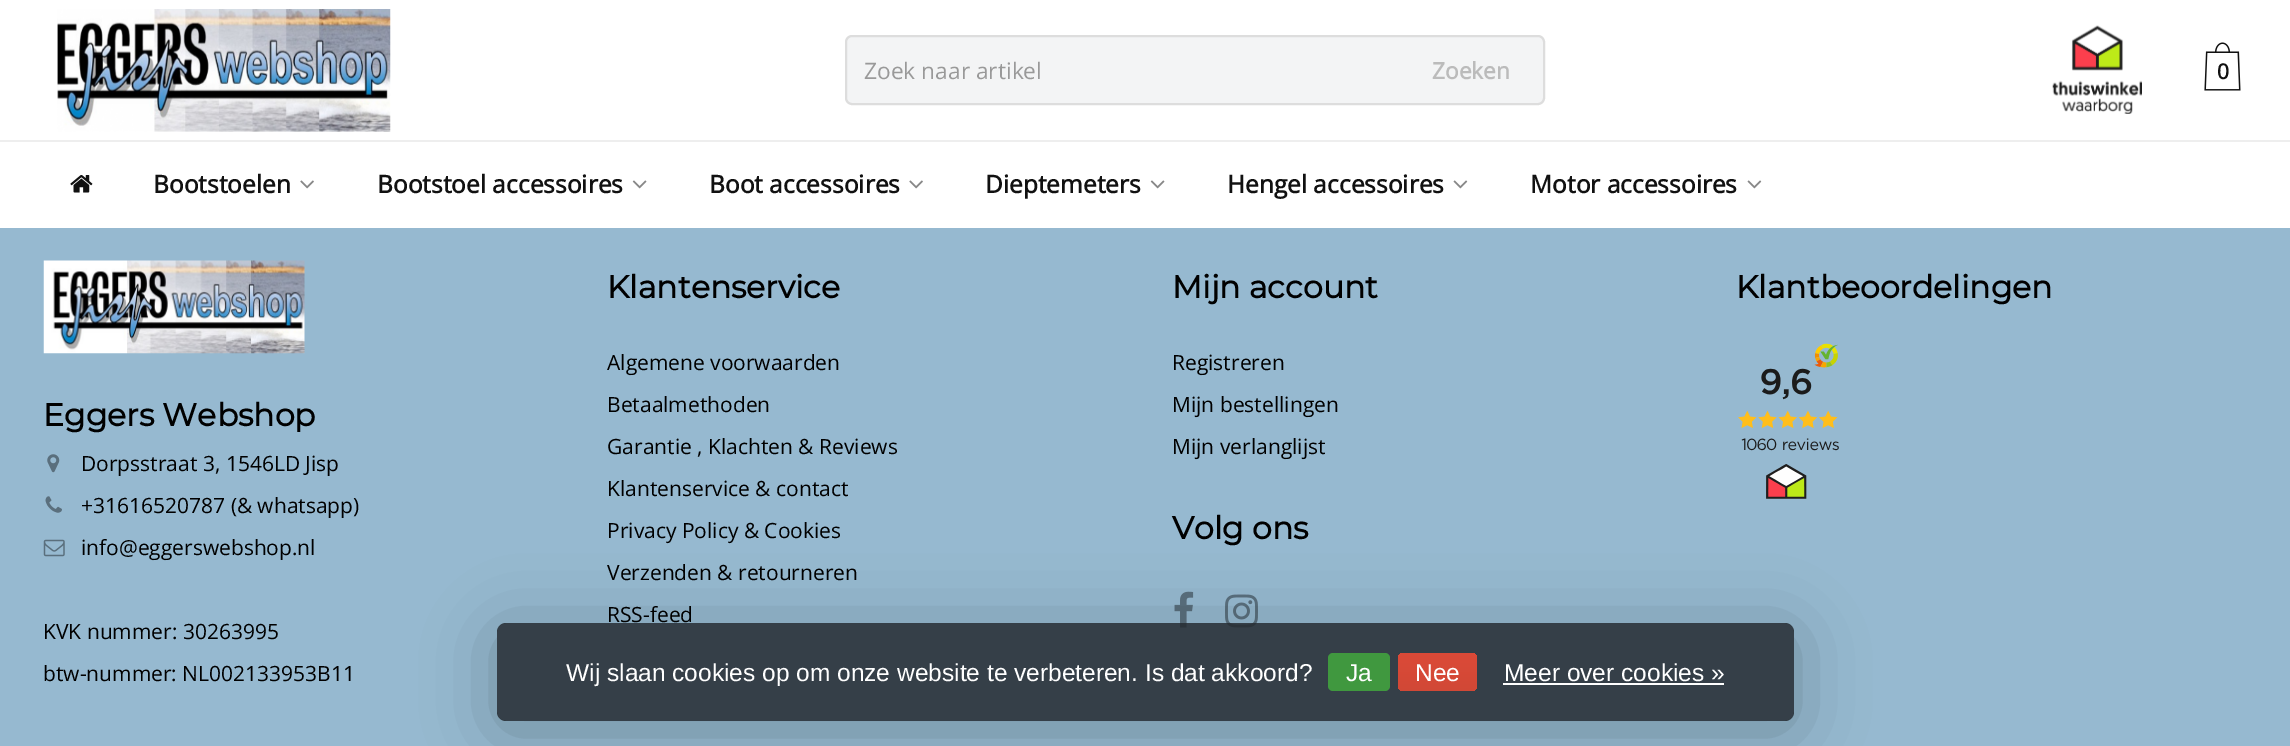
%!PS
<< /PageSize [2290 746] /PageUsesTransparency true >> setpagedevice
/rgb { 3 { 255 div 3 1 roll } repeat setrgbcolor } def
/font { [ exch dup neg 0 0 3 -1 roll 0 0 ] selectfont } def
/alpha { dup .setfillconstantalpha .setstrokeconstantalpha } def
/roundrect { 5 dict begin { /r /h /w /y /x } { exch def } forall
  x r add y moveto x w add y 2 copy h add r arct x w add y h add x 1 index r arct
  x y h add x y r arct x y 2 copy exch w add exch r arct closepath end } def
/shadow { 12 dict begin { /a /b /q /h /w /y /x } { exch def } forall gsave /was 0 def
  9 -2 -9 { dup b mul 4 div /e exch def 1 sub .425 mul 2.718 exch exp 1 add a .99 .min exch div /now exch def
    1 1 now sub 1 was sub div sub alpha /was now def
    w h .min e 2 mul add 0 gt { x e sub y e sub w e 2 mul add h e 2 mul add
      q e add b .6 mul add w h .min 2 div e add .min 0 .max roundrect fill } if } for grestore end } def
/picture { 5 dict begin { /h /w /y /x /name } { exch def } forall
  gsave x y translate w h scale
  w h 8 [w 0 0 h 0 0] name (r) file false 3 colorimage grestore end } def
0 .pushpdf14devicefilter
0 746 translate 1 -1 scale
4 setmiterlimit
150 185 208 rgb
0 0 2290 746 rectfill
255 255 255 rgb
0 0 2290 228 rectfill
(img/1.rgb) 57 9 334 123 picture
243 244 245 rgb
846 36 698 68 6 roundrect gsave fill grestore
221 221 221 rgb
2 setlinewidth
stroke
(img/2.rgb) 2052 25 90 89 picture
(img/3.rgb) 2204 42 37 49 picture
(img/4.rgb) 70 175 23 18 picture
(img/5.rgb) 300 180 14 9 picture
(img/6.rgb) 632 180 15 9 picture
(img/5.rgb) 909 180 14 9 picture
(img/6.rgb) 1150 180 15 9 picture
(img/7.rgb) 1453 180 15 9 picture
(img/7.rgb) 1747 180 15 9 picture
238 238 238 rgb
0 140 2290 2 rectfill
(img/8.rgb) 1174 591 20 37 picture
(img/9.rgb) 1225 594 33 34 picture
(img/10.rgb) 1738 343 101 156 picture
(img/11.rgb) 43 260 262 94 picture
(img/12.rgb) 47 454 13 19 picture
(img/13.rgb) 45 496 17 17 picture
(img/14.rgb) 43 539 22 18 picture
gsave
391 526 moveto 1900 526 lineto 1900 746 lineto 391 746 lineto closepath 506 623 moveto 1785 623 lineto 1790 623 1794 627 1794 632 curveto 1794 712 lineto 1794 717 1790 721 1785 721 curveto 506 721 lineto 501 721 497 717 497 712 curveto 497 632 lineto 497 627 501 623 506 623 curveto closepath eoclip newpath
0 0 0 rgb
497 632 1297 98 9 35 0.25 shadow
grestore
0.85 alpha
36 42 48 rgb
497 623 1297 98 9 roundrect fill
1 alpha
64 152 63 rgb
1328 653 62 38 5 roundrect fill
gsave 1398 653 79 38 5 roundrect clip newpath
<< /ShadingType 2 /ColorSpace /DeviceRGB /Coords [1438 653 1438 691] /Extend [true true] /Function << /FunctionType 2 /Domain [0 1] /C0 [0.863 0.29 0.22] /C1 [0.82 0.282 0.212] /N 1 >> >> shfill grestore
255 255 255 rgb
1503 683 221 2 rectfill
/OpenSans-Regular 22.75 font
153 153 153 rgb
864 79 moveto (Zoek naar artikel) show
/OpenSans-Bold 22.75 font
187 187 187 rgb
1432 79 moveto (Zoeken) show
/OpenSans-Bold 21 font
17 17 17 rgb
2217 79 moveto (0) show
/OpenSans-Bold 24.5 font
[
  [(Bootstoelen) 153 193]
  [(Bootstoel accessoires) 377 193]
  [(Boot accessoires) 709 193]
  [(Dieptemeters) 985 193]
  [(Hengel accessoires) 1227 193]
  [(Motor accessoires) 1530 193]
] { aload pop moveto show } forall
/Montserrat-Bold 31.5 font
0 0 0 rgb
607 298 moveto (Klantenservice) show
/OpenSans-Regular 21 font
[
  [(Algemene voorwaarden) 607 370]
  [(Betaalmethoden) 607 412]
  [(Garantie , Klachten & Reviews) 607 454]
  [(Klantenservice & contact) 607 496]
  [(Privacy Policy & Cookies) 607 538]
  [(Verzenden & retourneren) 607 580]
  [(RSS-feed) 607 622]
] { aload pop moveto show } forall
/Montserrat-Bold 31.5 font
1172 298 moveto (Mijn account) show
/OpenSans-Regular 21 font
[
  [(Registreren) 1172 370]
  [(Mijn bestellingen) 1172 412]
  [(Mijn verlanglijst) 1172 454]
] { aload pop moveto show } forall
/Montserrat-Bold 31.5 font
[
  [(Volg ons) 1172 539]
  [(Klantbeoordelingen) 1736 298]
  [(Eggers Webshop) 43 426]
] { aload pop moveto show } forall
/OpenSans-Regular 21 font
[
  [(Dorpsstraat 3, 1546LD Jisp) 81 471]
  [(+31616520787 \(& whatsapp\)) 81 513]
  [(info@eggerswebshop.nl) 81 555]
  [(KVK nummer: 30263995) 43 639]
  [(btw-nummer: NL002133953B11) 43 681]
] { aload pop moveto show } forall
/LiberationSans-Regular 24.5 font
255 255 255 rgb
[
  [(Wij slaan cookies op om onze website te verbeteren. Is dat akkoord?) 566 681]
  [(Ja) 1346 681]
  [(Nee) 1415 681]
  [(Meer over cookies ») 1504 681]
] { aload pop moveto show } forall
.poppdf14devicefilter showpage
